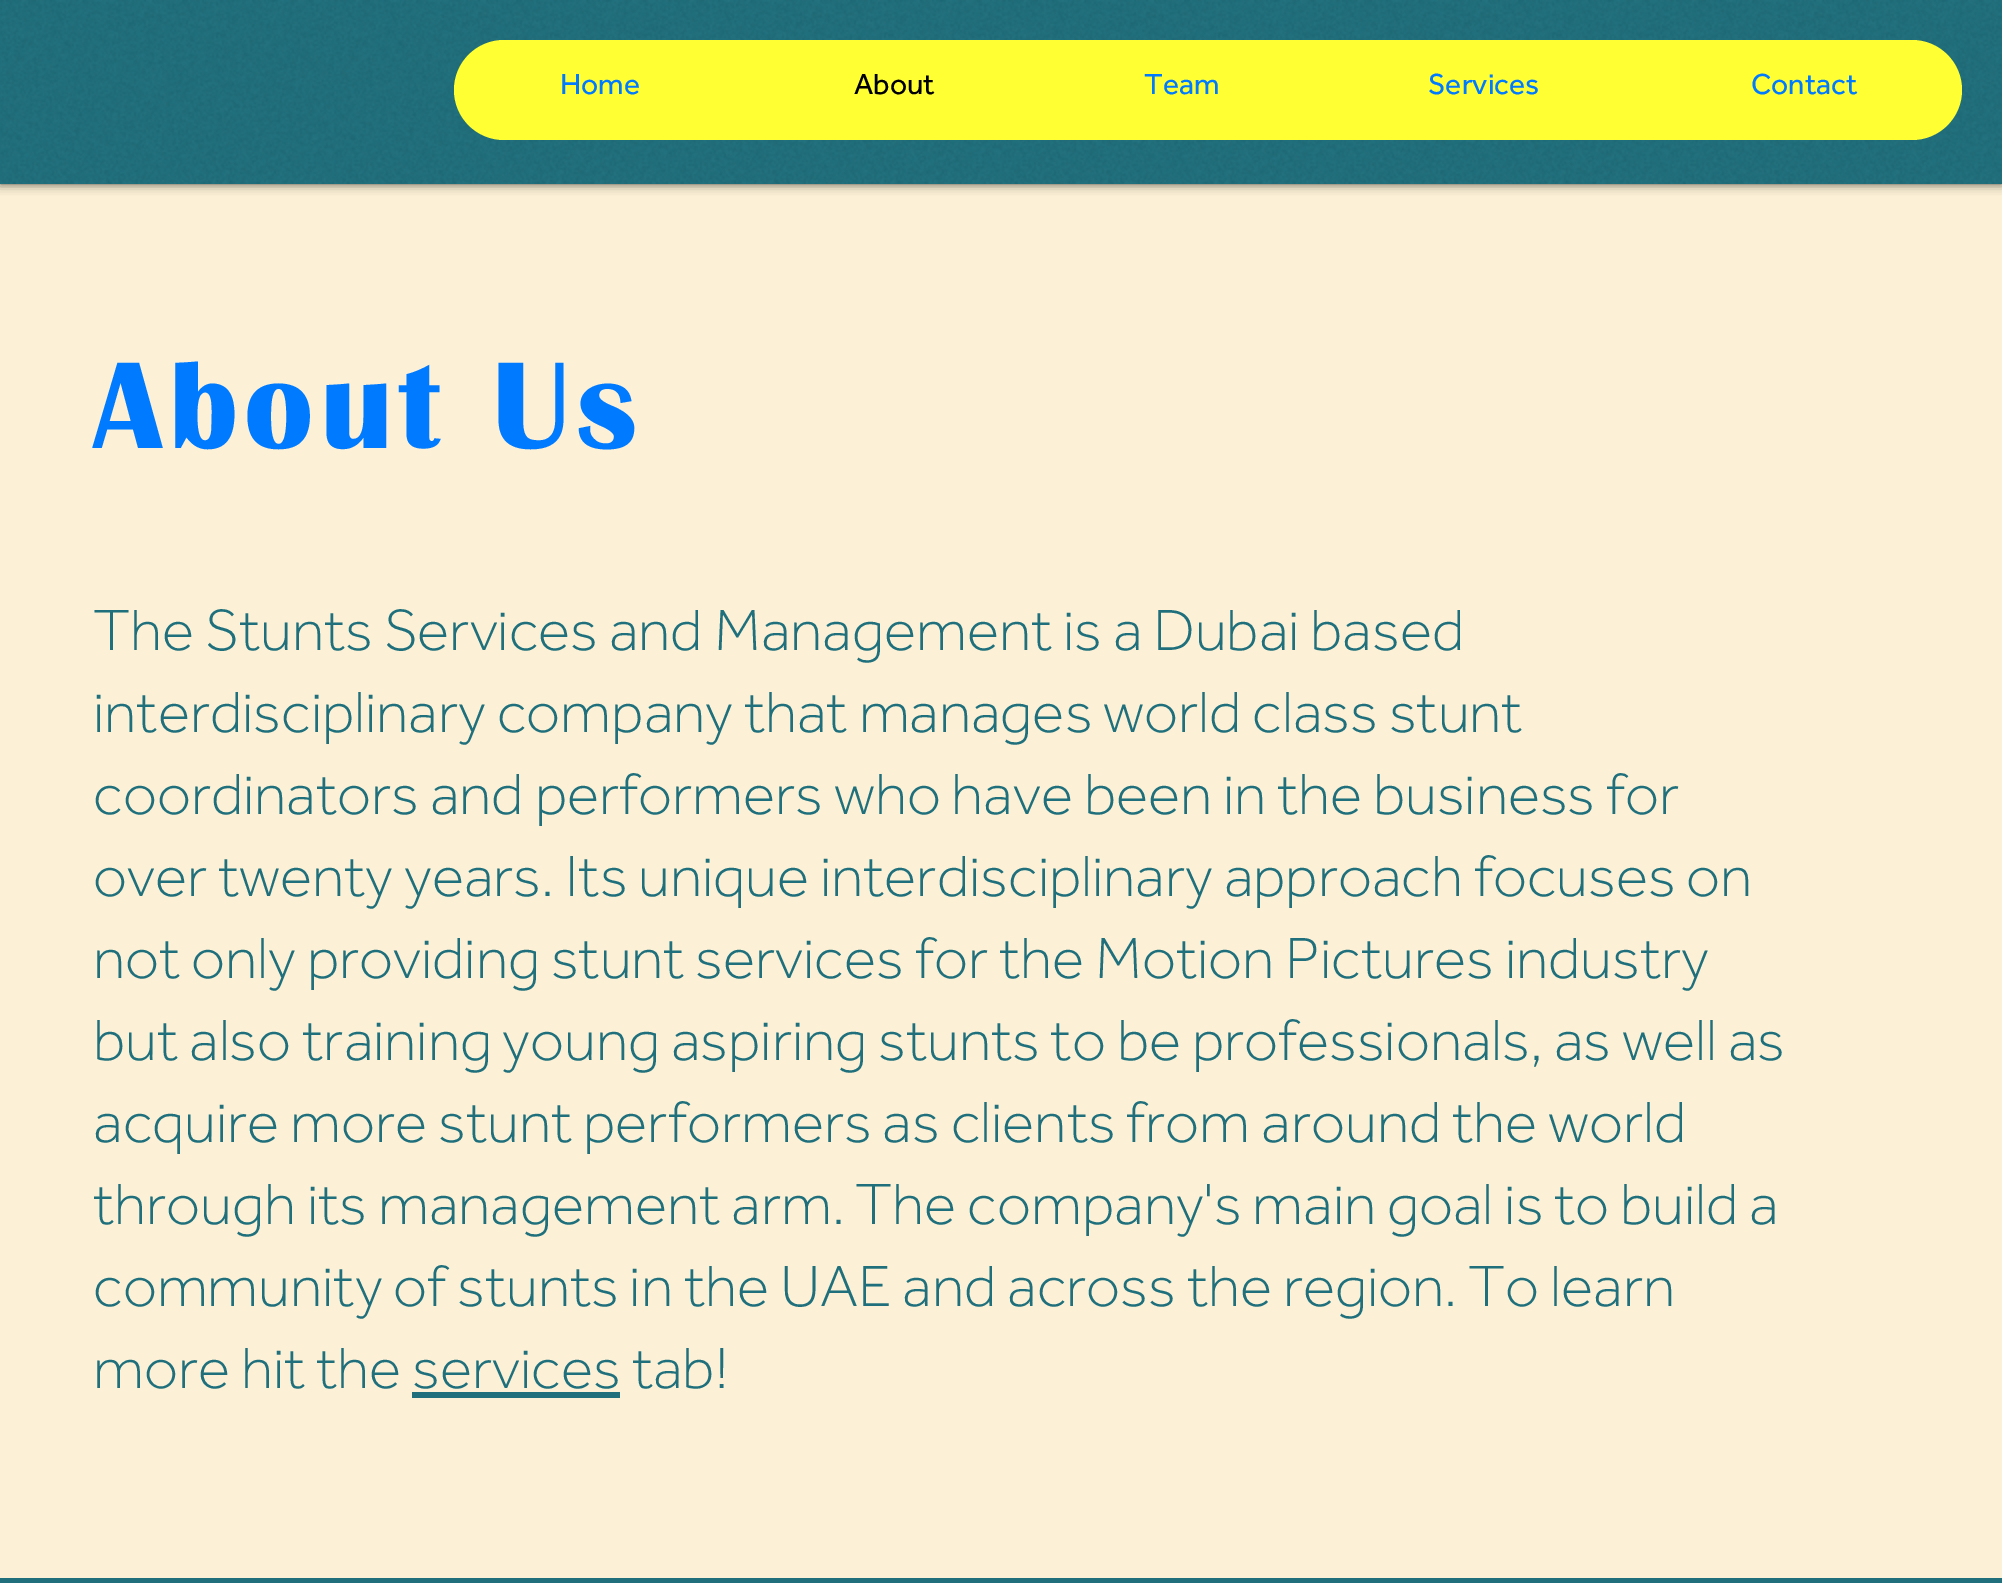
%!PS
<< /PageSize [2002 1583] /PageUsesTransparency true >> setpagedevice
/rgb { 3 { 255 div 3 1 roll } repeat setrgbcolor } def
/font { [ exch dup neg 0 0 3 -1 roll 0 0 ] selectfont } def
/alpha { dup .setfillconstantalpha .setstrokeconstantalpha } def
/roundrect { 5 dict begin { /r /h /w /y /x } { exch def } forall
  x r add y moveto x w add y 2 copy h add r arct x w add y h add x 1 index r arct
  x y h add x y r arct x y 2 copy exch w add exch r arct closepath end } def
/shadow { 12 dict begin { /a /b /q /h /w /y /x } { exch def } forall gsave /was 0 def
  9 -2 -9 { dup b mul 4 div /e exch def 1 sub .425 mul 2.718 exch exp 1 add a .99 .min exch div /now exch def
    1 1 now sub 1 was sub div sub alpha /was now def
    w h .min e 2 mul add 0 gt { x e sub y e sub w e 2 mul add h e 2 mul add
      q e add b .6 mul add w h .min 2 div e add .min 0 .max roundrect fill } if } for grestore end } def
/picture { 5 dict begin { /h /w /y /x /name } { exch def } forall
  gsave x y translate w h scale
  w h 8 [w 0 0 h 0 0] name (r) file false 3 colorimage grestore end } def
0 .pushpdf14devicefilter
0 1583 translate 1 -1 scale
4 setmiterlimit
252 241 214 rgb
0 0 2002 1583 rectfill
0 0 0 rgb
0 0 2002 184 0 5 0.7 shadow
31 111 124 rgb
0 0 2002 184 rectfill
(img/1.rgb) 0 0 2002 184 picture
255 255 51 rgb
454 40 1508 100 50 roundrect fill
31 111 124 rgb
412 1392 208 6 rectfill
0 1578 2002 5 rectfill
/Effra-Regular 30 font
0 122 255 rgb
560 94 moveto (Home) show
0 0 0 rgb
854 94 moveto (About) show
0 122 255 rgb
[
  [(Team) 1144 94]
  [(Services) 1428 94]
  [(Contact) 1751 94]
] { aload pop moveto show } forall
/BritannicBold-Bold 128 font
93 448 moveto 6.5 0 (About Us) ashow
/Effra-Light 60 font
31 111 124 rgb
[
  [(The Stunts Services and Management is a Dubai based) 93 650]
  [(interdisciplinary company that manages world class stunt) 93 732]
  [(coordinators and performers who have been in the business for) 93 814]
  [(over twenty years. Its unique interdisciplinary approach focuses on) 93 896]
  [(not only providing stunt services for the Motion Pictures industry) 93 978]
  [(but also training young aspiring stunts to be professionals, as well as) 93 1060]
  [(acquire more stunt performers as clients from around the world) 93 1142]
  [(through its management arm. The company's main goal is to build a) 93 1224]
  [(community of stunts in the UAE and across the region. To learn) 93 1306]
  [(more hit the services tab!) 93 1388]
] { aload pop moveto show } forall
.poppdf14devicefilter showpage
